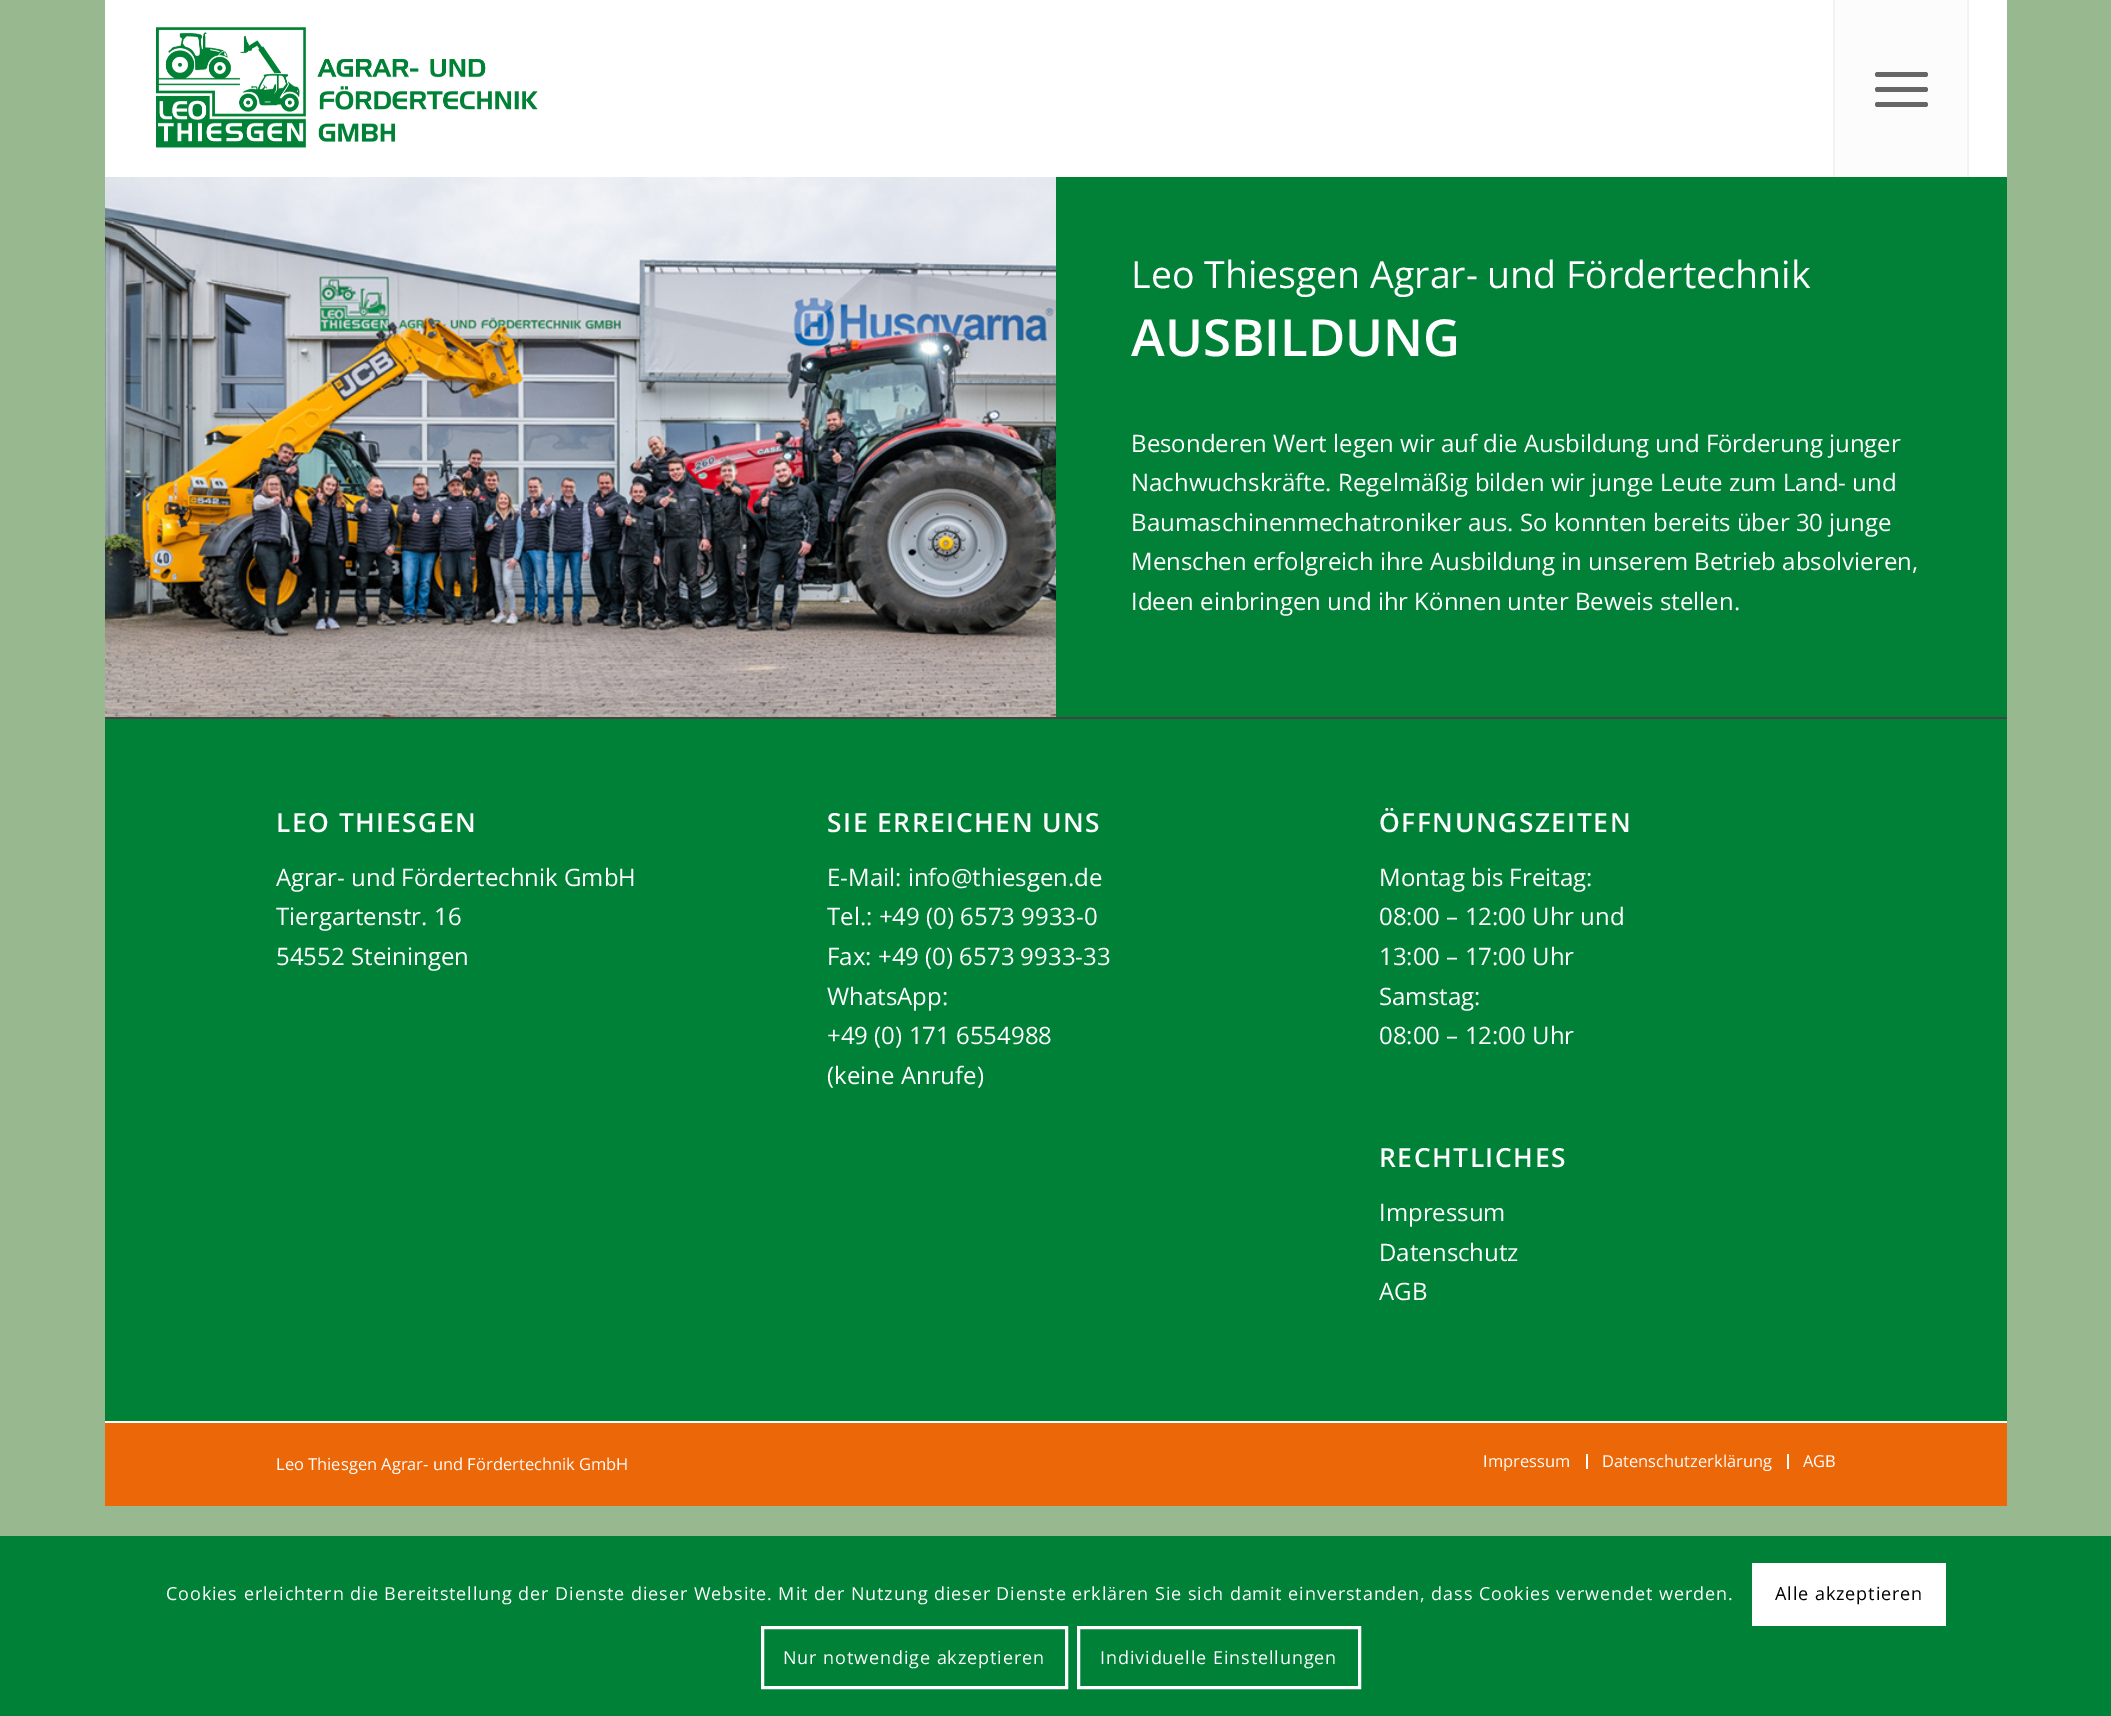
%!PS
<< /PageSize [2111 1716] >> setpagedevice
/rgb { 3 { 255 div 3 1 roll } repeat setrgbcolor } def
/font { [ exch dup neg 0 0 3 -1 roll 0 0 ] selectfont } def
/roundrect { 5 dict begin { /r /h /w /y /x } { exch def } forall
  x r add y moveto x w add y 2 copy h add r arct x w add y h add x 1 index r arct
  x y h add x y r arct x y 2 copy exch w add exch r arct closepath end } def
/picture { 5 dict begin { /h /w /y /x /name } { exch def } forall
  gsave x y translate w h scale
  w h 8 [w 0 0 h 0 0] name (r) file false 3 colorimage grestore end } def
0 1716 translate 1 -1 scale
4 setmiterlimit
152 185 143 rgb
0 0 2111 1716 rectfill
255 255 255 rgb
105 0 1902 177 rectfill
(img/1.rgb) 156 27 382 121 picture
[
  [1835 0 132 177 252 252 252]
  [1967 0 2 177 242 242 242]
  [1833 0 2 177 242 242 242]
] { aload pop rgb rectfill } forall
102 102 102 rgb
1875 87 53 5 2.5 roundrect fill
1875 72 53 5 2.5 roundrect fill
1875 102 53 5 2.5 roundrect fill
(img/2.rgb) 105 177 951 540 picture
[
  [1056 177 951 540 0 129 55]
  [105 719 1902 702 0 129 56]
  [105 717 1902 2 68 68 68]
  [105 1423 1902 83 236 103 7]
  [105 1421 1902 2 255 255 255]
  [1586 1454 2 15 255 255 255]
  [1787 1454 2 15 255 255 255]
  [0 1536 2111 180 0 129 56]
  [1752 1563 194 63 255 255 255]
] { aload pop rgb rectfill } forall
3 setlinewidth
762.5 1627.5 304 60 rectstroke
1078.5 1627.5 281 60 rectstroke
/OpenSans-Regular 37.5 font
1131 288 moveto (Leo Thiesgen Agrar- und Fördertechnik) show
/OpenSans-SemiBold 51 font
1131 356 moveto (AUSBILDUNG) show
/OpenSans-Regular 24 font
[
  [(Besonderen Wert legen wir auf die Ausbildung und Förderung junger) 1131 452]
  [(Nachwuchskräfte. Regelmäßig bilden wir junge Leute zum Land- und) 1131 491]
  [(Baumaschinenmechatroniker aus. So konnten bereits über 30 junge) 1131 531]
  [(Menschen erfolgreich ihre Ausbildung in unserem Betrieb absolvieren,) 1131 570]
  [(Ideen einbringen und ihr Können unter Beweis stellen.) 1131 610]
] { aload pop moveto show } forall
/OpenSans-SemiBold 26.4 font
276 832 moveto 1.5 0 (LEO THIESGEN) ashow
/OpenSans-Regular 24 font
[
  [(Agrar- und Fördertechnik GmbH) 276 886]
  [(Tiergartenstr. 16) 276 925]
  [(54552 Steiningen) 276 965]
] { aload pop moveto show } forall
/OpenSans-SemiBold 26.4 font
827 832 moveto 1.5 0 (SIE ERREICHEN UNS) ashow
/OpenSans-Regular 24 font
[
  [(E-Mail: info@thiesgen.de) 827 886]
  [(Tel.: +49 \(0\) 6573 9933-0) 827 925]
  [(Fax: +49 \(0\) 6573 9933-33) 827 965]
  [(WhatsApp:) 827 1005]
  [(+49 \(0\) 171 6554988) 827 1044]
  [(\(keine Anrufe\)) 827 1084]
] { aload pop moveto show } forall
/OpenSans-SemiBold 26.4 font
1379 832 moveto 1.5 0 (ÖFFNUNGSZEITEN) ashow
/OpenSans-Regular 24 font
[
  [(Montag bis Freitag:) 1379 886]
  [(08:00 – 12:00 Uhr und) 1379 925]
  [(13:00 – 17:00 Uhr) 1379 965]
  [(Samstag:) 1379 1005]
  [(08:00 – 12:00 Uhr) 1379 1044]
] { aload pop moveto show } forall
/OpenSans-SemiBold 26.4 font
1379 1167 moveto 1.5 0 (RECHTLICHES) ashow
/OpenSans-Regular 24 font
[
  [(Impressum) 1379 1221]
  [(Datenschutz) 1379 1261]
  [(AGB) 1379 1300]
] { aload pop moveto show } forall
/OpenSans-Regular 16.5 font
[
  [(Leo Thiesgen Agrar- und Fördertechnik GmbH) 276 1470]
  [(Impressum) 1483 1467]
  [(Datenschutzerklärung) 1602 1467]
  [(AGB) 1803 1467]
] { aload pop moveto show } forall
/OpenSans-Regular 18 font
166 1600 moveto 0.9 0 (Cookies erleichtern die Bereitstellung der Dienste dieser Website. Mit der Nutzung dieser Dienste erklären Sie sich damit einverstanden, dass Cookies verwendet werden.) ashow
0 0 0 rgb
1775 1600 moveto 0.9 0 (Alle akzeptieren) ashow
255 255 255 rgb
783 1664 moveto 0.9 0 (Nur notwendige akzeptieren) ashow
1100 1664 moveto 0.9 0 (Individuelle Einstellungen) ashow
showpage
